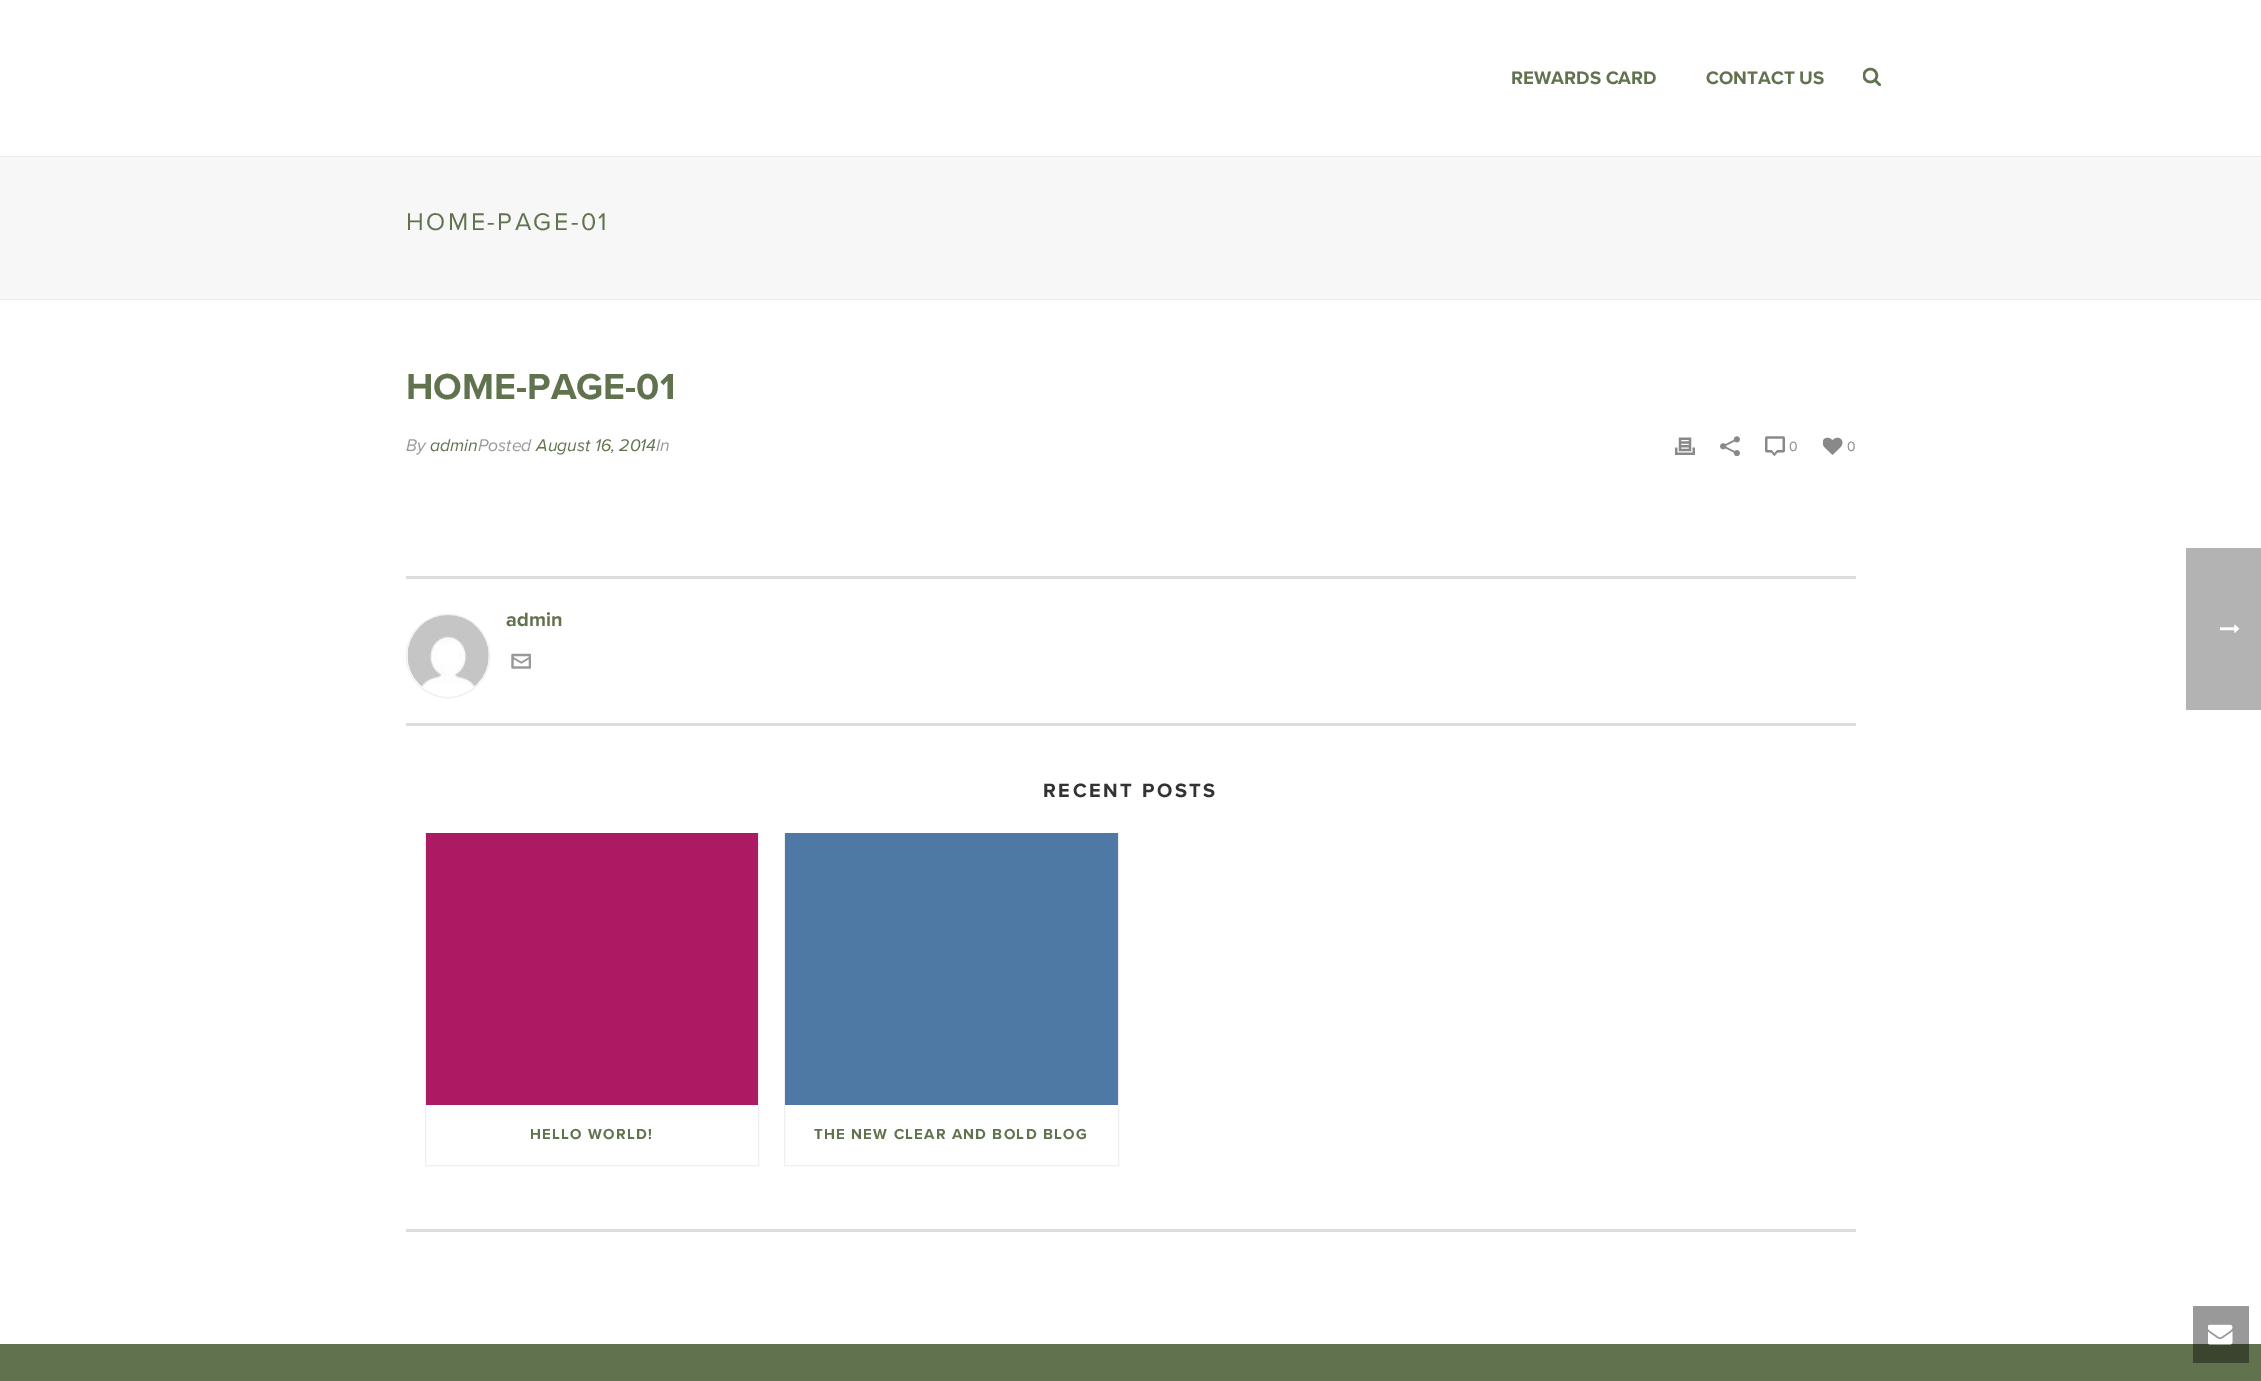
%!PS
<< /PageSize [2261 1381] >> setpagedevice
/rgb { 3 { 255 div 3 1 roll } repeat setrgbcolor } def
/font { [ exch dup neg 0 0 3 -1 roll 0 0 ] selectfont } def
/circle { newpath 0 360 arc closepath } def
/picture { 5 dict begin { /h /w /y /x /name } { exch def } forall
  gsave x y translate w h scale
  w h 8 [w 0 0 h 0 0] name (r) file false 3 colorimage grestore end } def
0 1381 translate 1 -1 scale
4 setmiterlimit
255 255 255 rgb
0 0 2261 1381 rectfill
[
  [2193 1306 56 38 153 153 153]
  [0 157 2261 142 247 247 247]
  [0 299 2261 1 237 237 237]
  [0 156 2261 1 237 237 237]
] { aload pop rgb rectfill } forall
(img/1.rgb) 1863 67 18 19 picture
(img/2.rgb) 1675 437 20 18 picture
(img/3.rgb) 1720 436 20 20 picture
(img/4.rgb) 1765 436 20 20 picture
(img/5.rgb) 1823 437 20 18 picture
221 221 221 rgb
406 576 1450 3 rectfill
406 723 1450 3 rectfill
238 238 238 rgb
448 656 41.5 circle stroke
(img/6.rgb) 407 615 82 72 picture
(img/7.rgb) 511 653 20 16 picture
221 221 221 rgb
406 1229 1450 3 rectfill
239 239 239 rgb
425.5 833.5 333 332 rectstroke
172 26 99 rgb
426 833 332 272 rectfill
239 239 239 rgb
784.5 833.5 334 332 rectstroke
[
  [785 833 333 272 78 121 165]
  [0 1344 2261 37 97 114 78]
  [2193 1344 56 19 58 68 47]
  [2186 548 75 162 179 179 179]
] { aload pop rgb rectfill } forall
(img/8.rgb) 2220 624 20 9 picture
(img/9.rgb) 2208 1324 25 21 picture
/ProximaNova-Bold 18.75 font
97 114 78 rgb
1511 84 moveto (REWARDS CARD) show
1706 84 moveto (CONTACT US) show
/ProximaNova-Regular 25 font
406 230 moveto 2.5 0 (HOME-PAGE-01) ashow
/ProximaNova-Bold 37.5 font
406 399 moveto (HOME-PAGE-01) show
/ProximaNova-Italic 17.5 font
153 153 153 rgb
406 451 moveto (By) show
97 114 78 rgb
430 451 moveto (admin) show
153 153 153 rgb
478 451 moveto (Posted) show
97 114 78 rgb
536 451 moveto (August 16, 2014) show
153 153 153 rgb
656 451 moveto (In) show
/ProximaNova-Regular 14 font
137 137 137 rgb
1789 451 moveto (0) show
1847 451 moveto (0) show
/ProximaNova-Bold 20 font
97 114 78 rgb
506 626 moveto (admin) show
51 51 51 rgb
1043 797 moveto 2.5 0 (RECENT POSTS) ashow
/ProximaNova-Bold 15 font
97 114 78 rgb
530 1139 moveto 1.25 0 (HELLO WORLD!) ashow
814 1139 moveto 1.25 0 (THE NEW CLEAR AND BOLD BLOG) ashow
showpage
